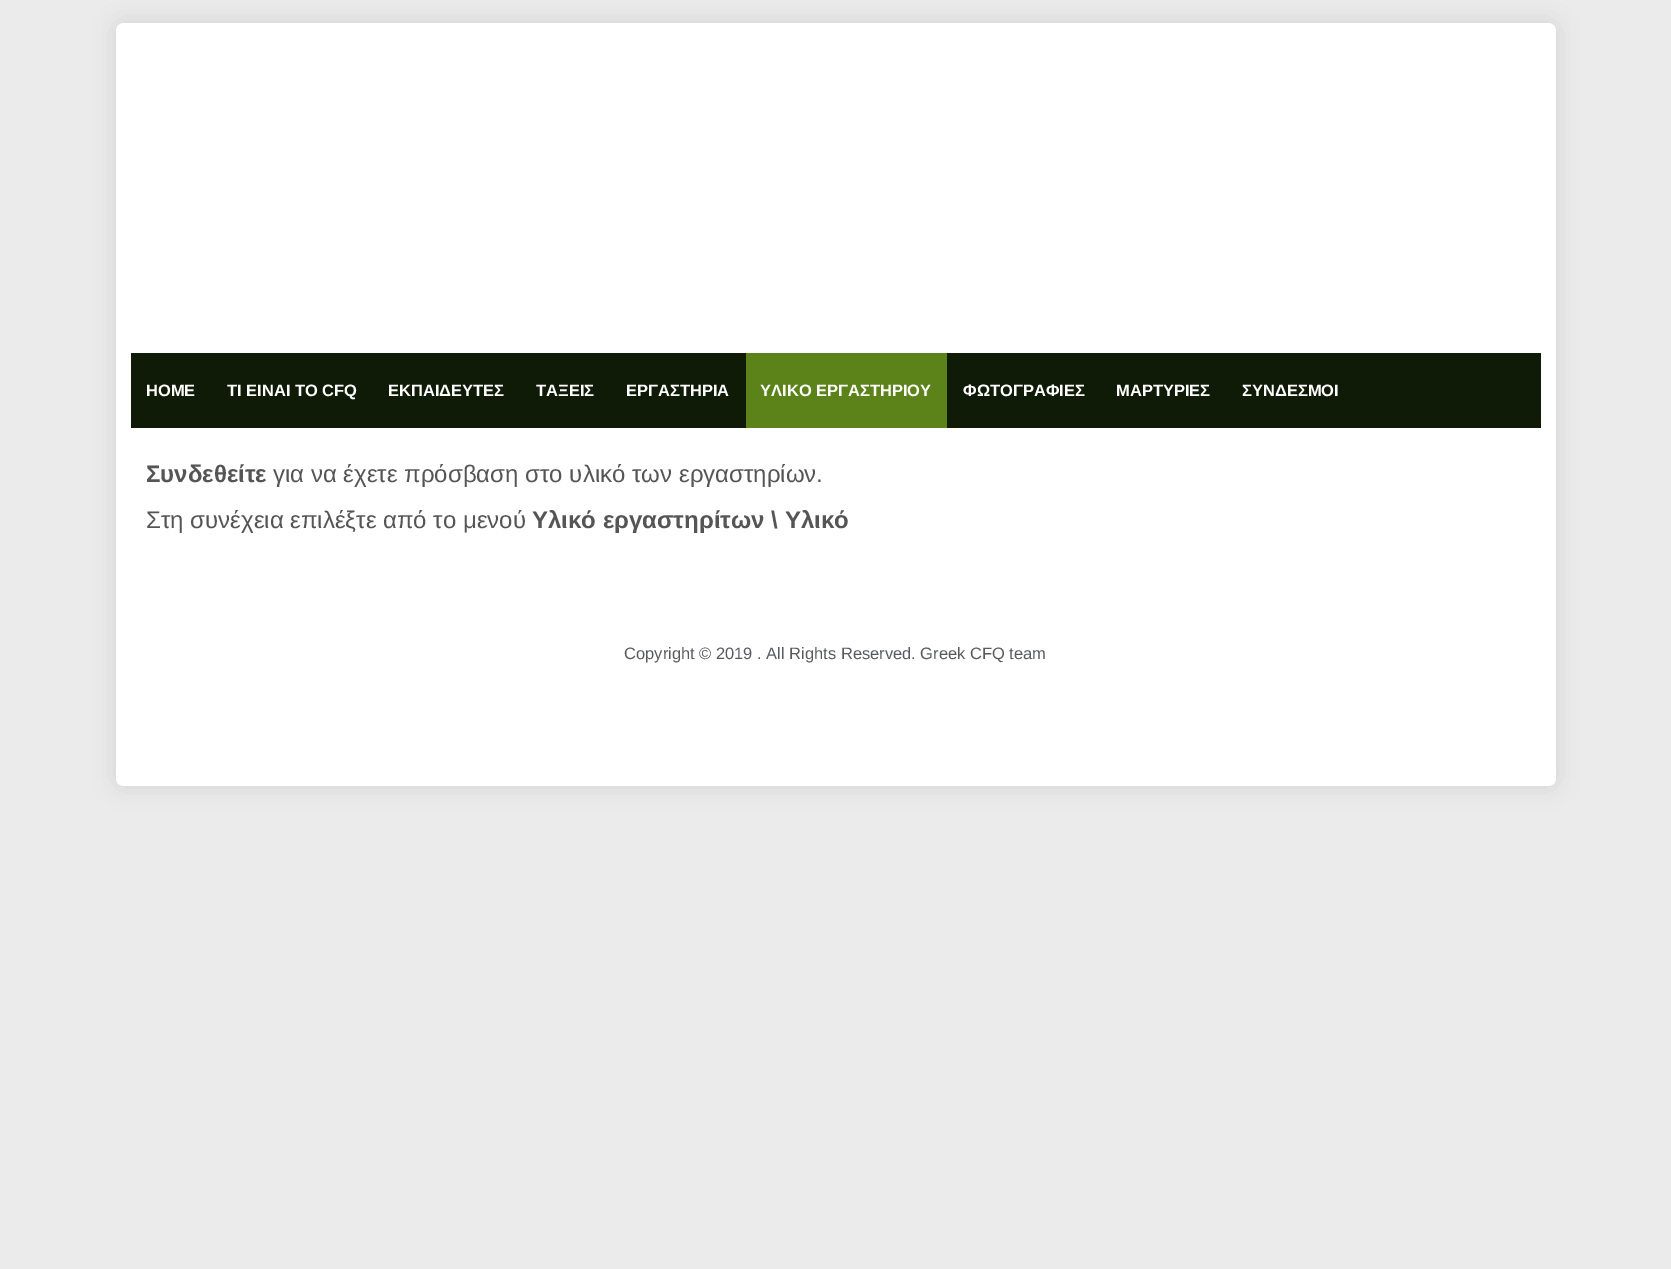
%!PS
<< /PageSize [1671 1269] /PageUsesTransparency true >> setpagedevice
/rgb { 3 { 255 div 3 1 roll } repeat setrgbcolor } def
/font { [ exch dup neg 0 0 3 -1 roll 0 0 ] selectfont } def
/alpha { dup .setfillconstantalpha .setstrokeconstantalpha } def
/roundrect { 5 dict begin { /r /h /w /y /x } { exch def } forall
  x r add y moveto x w add y 2 copy h add r arct x w add y h add x 1 index r arct
  x y h add x y r arct x y 2 copy exch w add exch r arct closepath end } def
/shadow { 12 dict begin { /a /b /q /h /w /y /x } { exch def } forall gsave /was 0 def
  9 -2 -9 { dup b mul 4 div /e exch def 1 sub .425 mul 2.718 exch exp 1 add a .99 .min exch div /now exch def
    1 1 now sub 1 was sub div sub alpha /was now def
    w h .min e 2 mul add 0 gt { x e sub y e sub w e 2 mul add h e 2 mul add
      q e add b .6 mul add w h .min 2 div e add .min 0 .max roundrect fill } if } for grestore end } def
0 .pushpdf14devicefilter
0 1269 translate 1 -1 scale
4 setmiterlimit
235 235 235 rgb
0 0 1671 1269 rectfill
0 0 0 rgb
116 23 1440 763 8 12 0.1 shadow
255 255 255 rgb
124 23 moveto 1548 23 lineto 1552.5 23 1556 26.5 1556 31 curveto 1556 353 lineto 116 353 lineto 116 31 lineto 116 26.5 119.5 23 124 23 curveto closepath fill
[
  [116 353 1440 261 255 255 255]
  [131 353 1410 75 15 27 7]
  [746 353 201 75 92 130 26]
] { aload pop rgb rectfill } forall
255 255 255 rgb
116 614 moveto 1556 614 lineto 1556 778 lineto 1556 782.5 1552.5 786 1548 786 curveto 124 786 lineto 119.5 786 116 782.5 116 778 curveto closepath fill
/LiberationSans-Bold 16.5 font
[
  [(HOME) 146 396]
  [(ΤΙ ΕΙΝΑΙ ΤΟ CFQ) 227 396]
  [(ΕΚΠΑΙΔΕΥΤΕΣ) 388 396]
  [(ΤΑΞΕΙΣ) 536 396]
  [(ΕΡΓΑΣΤΗΡΙΑ) 626 396]
  [(ΥΛΙΚΟ ΕΡΓΑΣΤΗΡΙΟΥ) 760 396]
  [(ΦΩΤΟΓΡΑΦΙΕΣ) 963 396]
  [(ΜΑΡΤΥΡΙΕΣ) 1116 396]
  [(ΣΥΝΔΕΣΜΟΙ) 1242 396]
] { aload pop moveto show } forall
/LiberationSans-Bold 24 font
85 85 85 rgb
146 482 moveto (Συνδεθείτε) show
/LiberationSans-Regular 24 font
273 482 moveto (για να έχετε πρόσβαση στο υλικό των εργαστηρίων.) show
146 528 moveto (Στη συνέχεια επιλέξτε από το μενού) show
/LiberationSans-Bold 24 font
532 528 moveto (Υλικό εργαστηρίτων \\ Υλικό) show
/LiberationSans-Regular 16.5 font
88 90 96 rgb
624 659 moveto (Copyright © 2019 . All Rights Reserved. Greek CFQ team) show
.poppdf14devicefilter showpage
